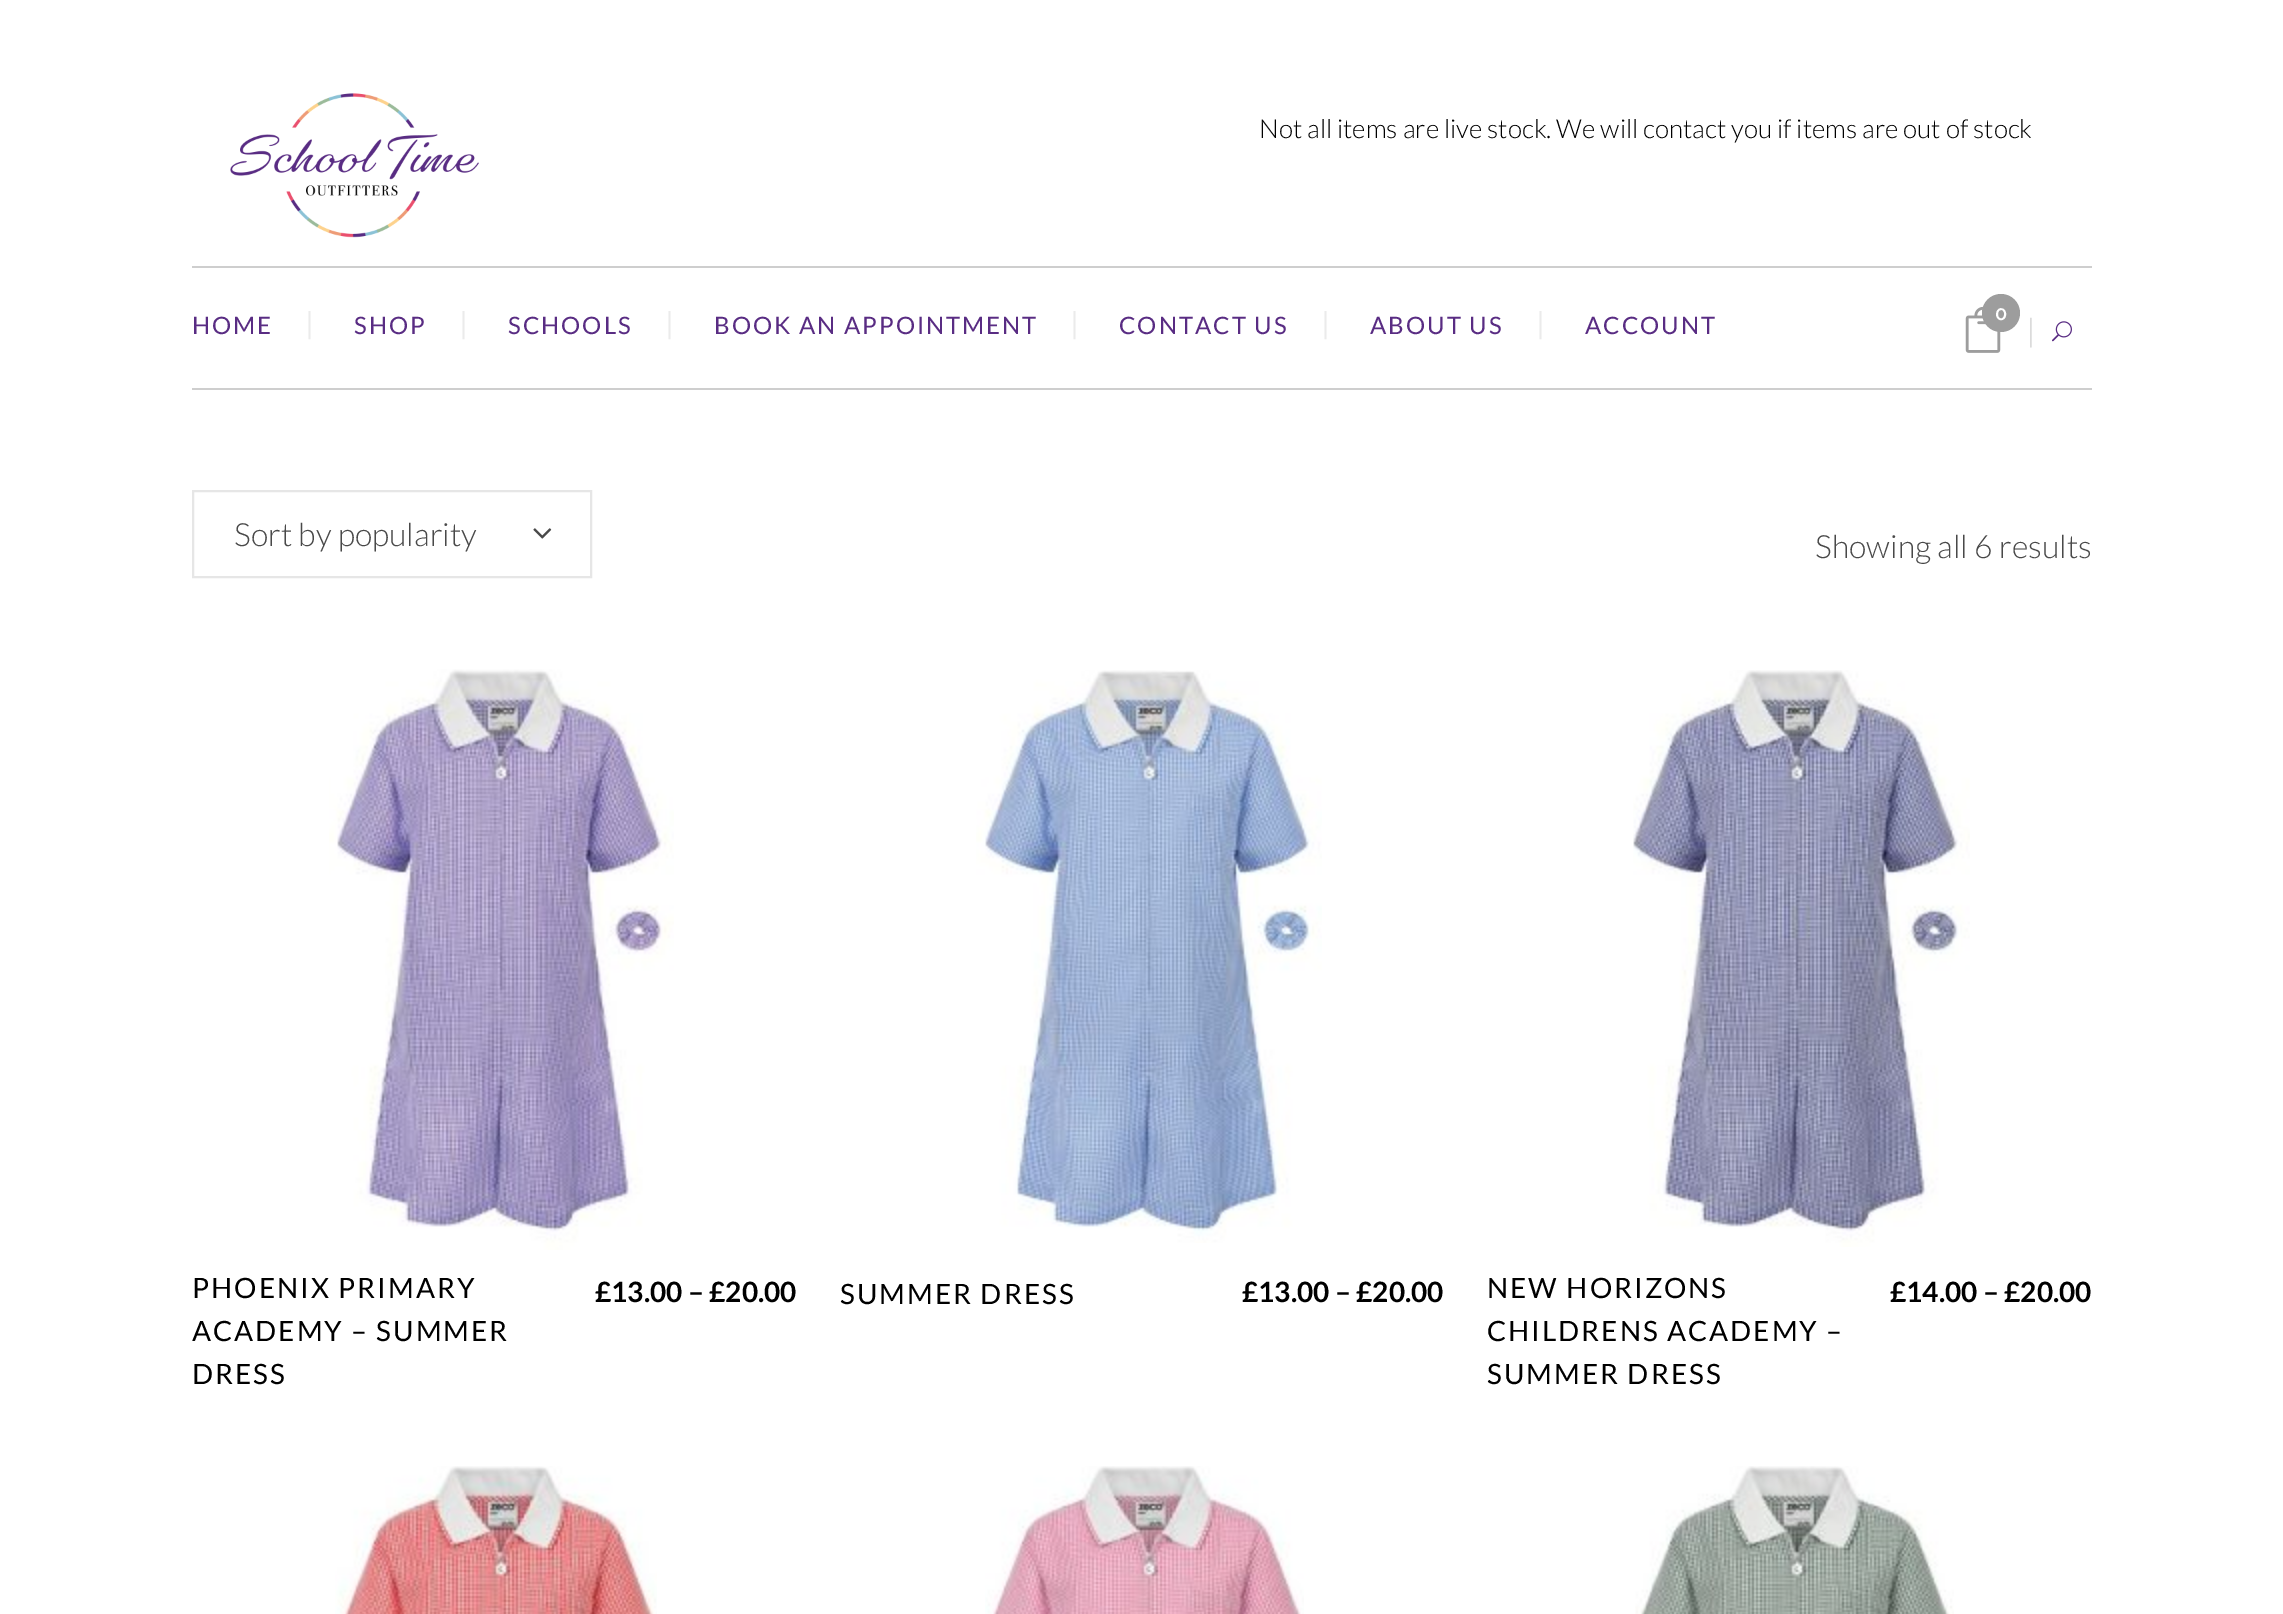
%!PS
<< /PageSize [2283 1614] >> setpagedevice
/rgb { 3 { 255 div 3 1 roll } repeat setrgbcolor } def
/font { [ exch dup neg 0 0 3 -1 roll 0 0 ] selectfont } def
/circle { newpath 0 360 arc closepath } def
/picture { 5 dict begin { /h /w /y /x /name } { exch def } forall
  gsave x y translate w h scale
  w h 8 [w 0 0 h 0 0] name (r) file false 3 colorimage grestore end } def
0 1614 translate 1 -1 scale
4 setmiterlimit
255 255 255 rgb
0 0 2283 1614 rectfill
(img/1.rgb) 230 93 249 145 picture
206 206 206 rgb
192 266 1900 2 rectfill
192 388 1900 2 rectfill
(img/2.rgb) 1965 306 36 47 picture
157 157 157 rgb
2001 313 19 circle fill
(img/3.rgb) 2052 321 20 21 picture
230 230 230 rgb
2 setlinewidth
193 491 398 86 rectstroke
(img/4.rgb) 533 528 19 11 picture
(img/5.rgb) 329 669 345 581 picture
(img/6.rgb) 976 670 346 573 picture
(img/7.rgb) 1633 670 337 577 picture
(img/8.rgb) 335 1466 322 148 picture
(img/9.rgb) 985 1466 319 148 picture
(img/10.rgb) 1635 1466 319 148 picture
/Lato-Light 26 font
0 0 0 rgb
1259 138 moveto (Not all items are live stock. We will contact you if items are out of stock) show
/Lato-Regular 24 font
89 44 131 rgb
192 334 moveto 2 0 (HOME) ashow
/Lato-Regular 30 font
235 235 235 rgb
305 334 moveto (|) show
/Lato-Regular 24 font
89 44 131 rgb
354 334 moveto 2 0 (SHOP) ashow
/Lato-Regular 30 font
235 235 235 rgb
459 334 moveto (|) show
/Lato-Regular 24 font
89 44 131 rgb
508 334 moveto 2 0 (SCHOOLS) ashow
/Lato-Regular 30 font
235 235 235 rgb
665 334 moveto (|) show
/Lato-Regular 24 font
89 44 131 rgb
714 334 moveto 2 0 (BOOK AN APPOINTMENT) ashow
/Lato-Regular 30 font
235 235 235 rgb
1070 334 moveto (|) show
/Lato-Regular 24 font
89 44 131 rgb
1119 334 moveto 2 0 (CONTACT US) ashow
/Lato-Regular 30 font
235 235 235 rgb
1321 334 moveto (|) show
/Lato-Regular 24 font
89 44 131 rgb
1370 334 moveto 2 0 (ABOUT US) ashow
/Lato-Regular 30 font
235 235 235 rgb
1536 334 moveto (|) show
/Lato-Regular 24 font
89 44 131 rgb
1585 334 moveto 2 0 (ACCOUNT) ashow
/Raleway-SemiBold 20 font
255 255 255 rgb
1995 320 moveto (0) show
/Lato-Light 32 font
206 206 206 rgb
2026 342 moveto (|) show
73 73 73 rgb
234 546 moveto (Sort by popularity) show
1815 558 moveto (Showing all 6 results) show
/Lato-Regular 28 font
0 0 0 rgb
192 1298 moveto 2 0 (PHOENIX PRIMARY) ashow
192 1341 moveto 2 0 (ACADEMY – SUMMER) ashow
192 1384 moveto 2 0 (DRESS) ashow
/Lato-Bold 28 font
595 1302 moveto (£13.00 – £20.00) show
/Lato-Regular 28 font
840 1304 moveto 2 0 (SUMMER DRESS) ashow
/Lato-Bold 28 font
1242 1302 moveto (£13.00 – £20.00) show
/Lato-Regular 28 font
1487 1298 moveto 2 0 (NEW HORIZONS) ashow
1487 1341 moveto 2 0 (CHILDRENS ACADEMY –) ashow
1487 1384 moveto 2 0 (SUMMER DRESS) ashow
/Lato-Bold 28 font
1890 1302 moveto (£14.00 – £20.00) show
showpage
